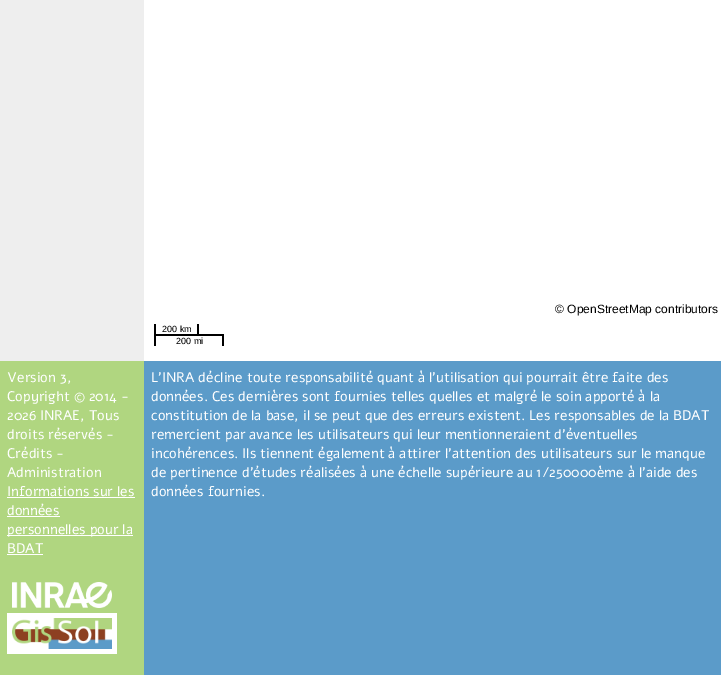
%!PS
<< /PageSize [721 675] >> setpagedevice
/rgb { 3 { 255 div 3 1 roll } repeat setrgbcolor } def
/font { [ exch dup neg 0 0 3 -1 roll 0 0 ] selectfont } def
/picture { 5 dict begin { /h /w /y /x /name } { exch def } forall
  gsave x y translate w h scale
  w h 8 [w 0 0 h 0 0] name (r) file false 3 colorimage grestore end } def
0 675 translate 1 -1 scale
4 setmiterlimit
255 255 255 rgb
0 0 721 675 rectfill
[
  [0 0 144 361 238 238 238]
  [197 324 2 12 0 0 0]
  [154 324 2 12 0 0 0]
  [154 334 70 2 0 0 0]
  [222 334 2 12 0 0 0]
  [154 334 2 12 0 0 0]
  [144 361 577 314 91 155 201]
  [0 361 144 314 176 214 128]
  [7 497 128 1 255 255 255]
  [7 516 53 1 255 255 255]
  [7 535 126 1 255 255 255]
  [7 554 36 1 255 255 255]
] { aload pop rgb rectfill } forall
(img/1.rgb) 12 582 100 26 picture
7 613 110 41 rectfill
(img/2.rgb) 12 618 100 31 picture
/LiberationSans-Regular 12 font
0 0 0 rgb
555 313 moveto (© OpenStreetMap contributors) show
/LiberationSans-Regular 9 font
162 332 moveto (200 km) show
176 344 moveto (200 mi) show
/Alef-Regular 14 font
255 255 255 rgb
[
  [(Version 3,) 7 382]
  [(Copyright © 2014 -) 7 401]
  [(2026 INRAE, Tous) 7 420]
  [(droits réservés -) 7 439]
  [(Crédits -) 7 458]
  [(Administration) 7 477]
  [(Informations sur les) 7 496]
  [(données) 7 515]
  [(personnelles pour la) 7 534]
  [(BDAT) 7 553]
  [(L'INRA décline toute responsabilité quant à l'utilisation qui pourrait être faite des) 151 382]
  [(données. Ces dernières sont fournies telles quelles et malgré le soin apporté à la) 151 401]
  [(constitution de la base, il se peut que des erreurs existent. Les responsables de la BDAT) 151 420]
  [(remercient par avance les utilisateurs qui leur mentionneraient d'éventuelles) 151 439]
  [(incohérences. Ils tiennent également à attirer l'attention des utilisateurs sur le manque) 151 458]
  [(de pertinence d'études réalisées à une échelle supérieure au 1/250000ème à l'aide des) 151 477]
  [(données fournies.) 151 496]
] { aload pop moveto show } forall
showpage
